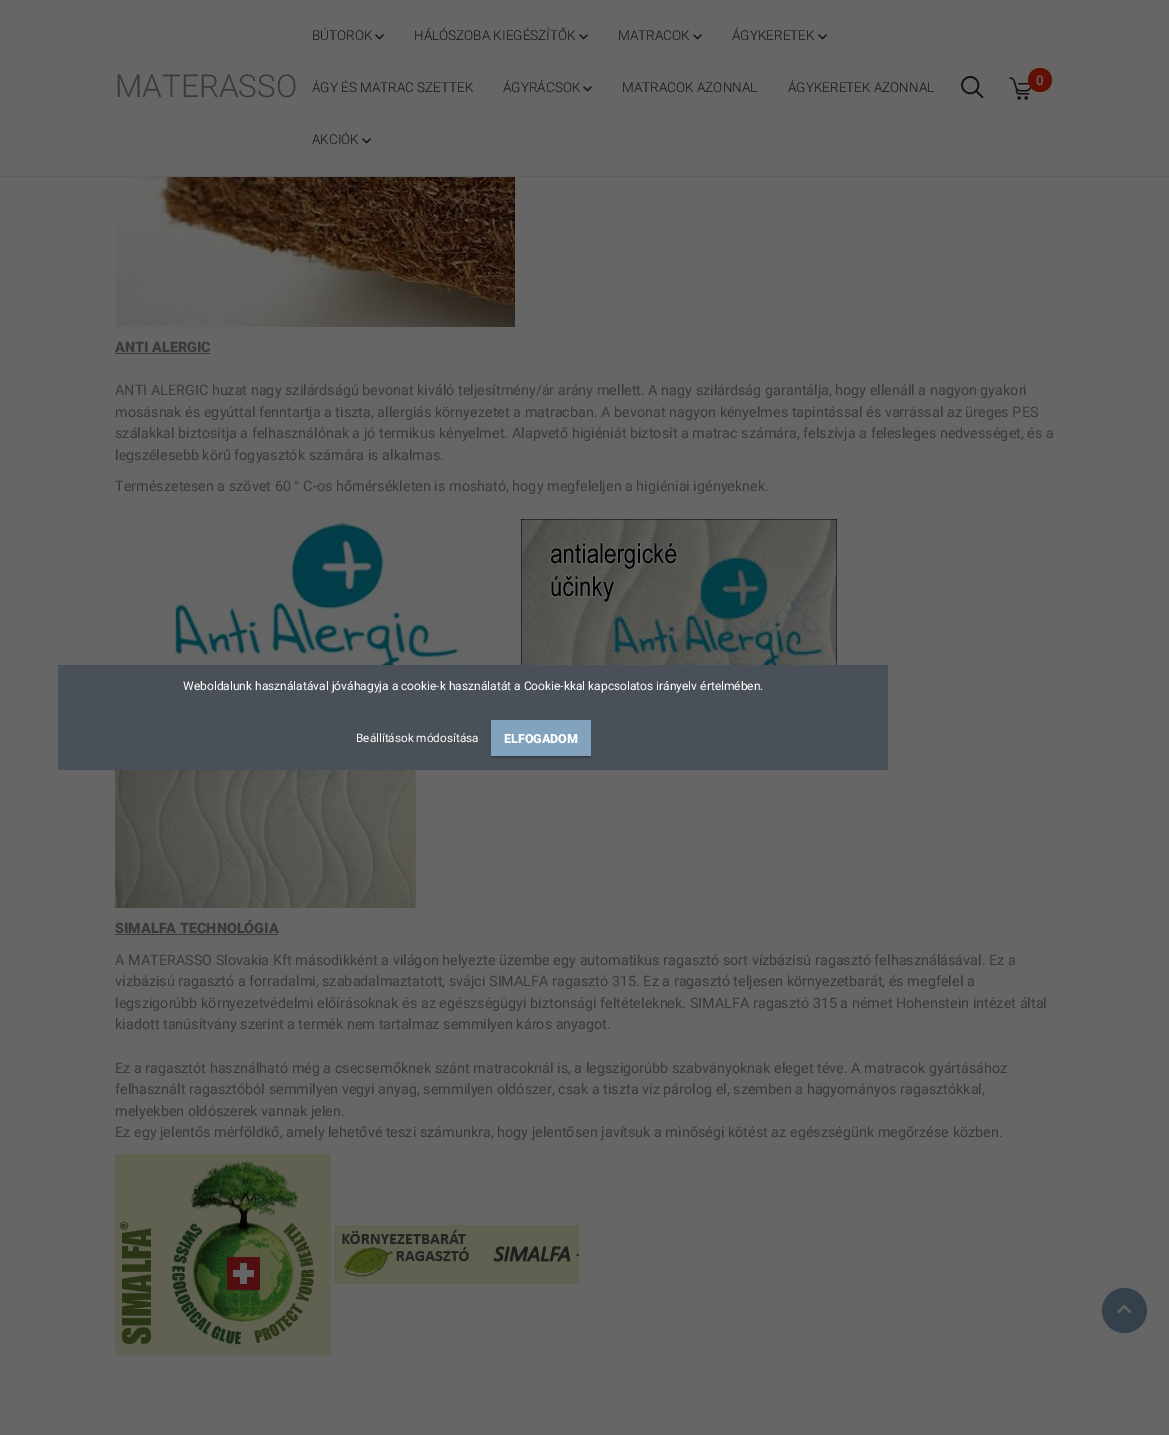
%!PS
<< /PageSize [1169 1435] /PageUsesTransparency true >> setpagedevice
/rgb { 3 { 255 div 3 1 roll } repeat setrgbcolor } def
/font { [ exch dup neg 0 0 3 -1 roll 0 0 ] selectfont } def
/alpha { dup .setfillconstantalpha .setstrokeconstantalpha } def
/circle { newpath 0 360 arc closepath } def
/roundrect { 5 dict begin { /r /h /w /y /x } { exch def } forall
  x r add y moveto x w add y 2 copy h add r arct x w add y h add x 1 index r arct
  x y h add x y r arct x y 2 copy exch w add exch r arct closepath end } def
/shadow { 12 dict begin { /a /b /q /h /w /y /x } { exch def } forall gsave /was 0 def
  9 -2 -9 { dup b mul 4 div /e exch def 1 sub .425 mul 2.718 exch exp 1 add a .99 .min exch div /now exch def
    1 1 now sub 1 was sub div sub alpha /was now def
    w h .min e 2 mul add 0 gt { x e sub y e sub w e 2 mul add h e 2 mul add
      q e add b .6 mul add w h .min 2 div e add .min 0 .max roundrect fill } if } for grestore end } def
/picture { 5 dict begin { /h /w /y /x /name } { exch def } forall
  gsave x y translate w h scale
  w h 8 [w 0 0 h 0 0] name (r) file false 3 colorimage grestore end } def
0 .pushpdf14devicefilter
0 1435 translate 1 -1 scale
4 setmiterlimit
102 102 102 rgb
0 0 1169 1435 rectfill
94 95 96 rgb
0 176 1169 1 rectfill
(img/1.rgb) 375 34 9 6 picture
(img/1.rgb) 579 34 9 6 picture
(img/1.rgb) 693 34 9 6 picture
(img/1.rgb) 818 34 9 6 picture
(img/1.rgb) 583 86 9 6 picture
(img/1.rgb) 362 138 9 6 picture
(img/2.rgb) 961 76 23 23 picture
(img/3.rgb) 1009 77 23 23 picture
96 16 4 rgb
1040 80 12 circle fill
(img/4.rgb) 115 177 400 150 picture
57 57 57 rgb
115 353 95 1 rectfill
(img/5.rgb) 165 518 305 147 picture
(img/6.rgb) 517 508 320 157 picture
(img/7.rgb) 115 770 301 138 picture
115 934 163 1 rectfill
(img/8.rgb) 115 1154 216 202 picture
(img/9.rgb) 334 1225 245 59 picture
52 65 76 rgb
1124.5 1310.5 22.5 circle fill
(img/10.rgb) 1117 1304 15 10 picture
73 80 87 rgb
58 665 830 105 rectfill
0 0 0 rgb
493 725 96 32 0 0.5 0.2 shadow
491 722 100 36 0 1 0.14 shadow
130 162 189 rgb
491 720 100 36 rectfill
/Roboto-Light 31.5 font
57 57 57 rgb
115 97 moveto (MATERASSO) show
/Roboto-Light 13.5 font
18 18 18 rgb
[
  [(BÚTOROK) 312 40]
  [(HÁLÓSZOBA KIEGÉSZÍTŐK) 414 40]
  [(MATRACOK) 618 40]
  [(ÁGYKERETEK) 732 40]
  [(ÁGY ÉS MATRAC SZETTEK) 312 92]
  [(ÁGYRÁCSOK) 503 92]
  [(MATRACOK AZONNAL) 622 92]
  [(ÁGYKERETEK AZONNAL) 788 92]
  [(AKCIÓK) 312 144]
] { aload pop moveto show } forall
/Roboto-Medium 13.5 font
102 102 102 rgb
1036 85 moveto (0) show
/Roboto-Black 14.4 font
57 57 57 rgb
115 352 moveto (ANTI ALERGIC) show
/Roboto-Regular 14.4 font
[
  [(ANTI ALERGIC huzat nagy szilárdságú bevonat kiváló teljesítmény/ár arány mellett. A nagy szilárdság garantálja, hogy ellenáll a nagyon gyakori) 115 395]
  [(mosásnak és egyúttal fenntartja a tiszta, allergiás környezetet a matracban. A bevonat nagyon kényelmes tapintással és varrással az üreges PES) 115 417]
  [(szálakkal biztosítja a felhasználónak a jó termikus kényelmet. Alapvető higiéniát biztosít a matrac számára, felszívja a felesleges nedvességet, és a) 115 438]
  [(legszélesebb körű fogyasztók számára is alkalmas.) 115 460]
  [(Természetesen a szövet 60 ° C-os hőmérsékleten is mosható, hogy megfeleljen a higiéniai igényeknek.) 115 491]
] { aload pop moveto show } forall
/Roboto-Black 14.4 font
115 933 moveto (SIMALFA TECHNOLÓGIA) show
/Roboto-Regular 14.4 font
[
  [(A MATERASSO Slovakia Kft másodikként a világon helyezte üzembe egy automatikus ragasztó sort vízbázisú ragasztó felhasználásával. Ez a) 115 965]
  [(vízbázisú ragasztó a forradalmi, szabadalmaztatott, svájci SIMALFA ragasztó 315. Ez a ragasztó teljesen környezetbarát, és megfelel a) 115 986]
  [(legszigorúbb környezetvédelmi előírásoknak és az egészségügyi biztonsági feltételeknek. SIMALFA ragasztó 315 a német Hohenstein intézet által) 115 1008]
  [(kiadott tanúsítvány szerint a termék nem tartalmaz semmilyen káros anyagot.) 115 1029]
  [(Ez a ragasztót használható még a csecsemőknek szánt matracoknál is, a legszigorúbb szabványoknak eleget téve. A matracok gyártásához) 115 1073]
  [(felhasznált ragasztóból semmilyen vegyi anyag, semmilyen oldószer, csak a tiszta víz párolog el, szemben a hagyományos ragasztókkal,) 115 1094]
  [(melyekben oldószerek vannak jelen.) 115 1116]
  [(Ez egy jelentős mérföldkő, amely lehetővé teszi számunkra, hogy jelentősen javítsuk a minőségi kötést az egészségünk megőrzése közben.) 115 1137]
] { aload pop moveto show } forall
/Roboto-Regular 12 font
255 255 255 rgb
183 690 moveto (Weboldalunk használatával jóváhagyja a cookie-k használatát a Cookie-kkal kapcsolatos irányelv értelmében.) show
/Roboto-Regular 11.75 font
356 742 moveto (Beállítások módosítása) show
/Roboto-Black 12.5 font
504 743 moveto (ELFOGADOM) show
.poppdf14devicefilter showpage
